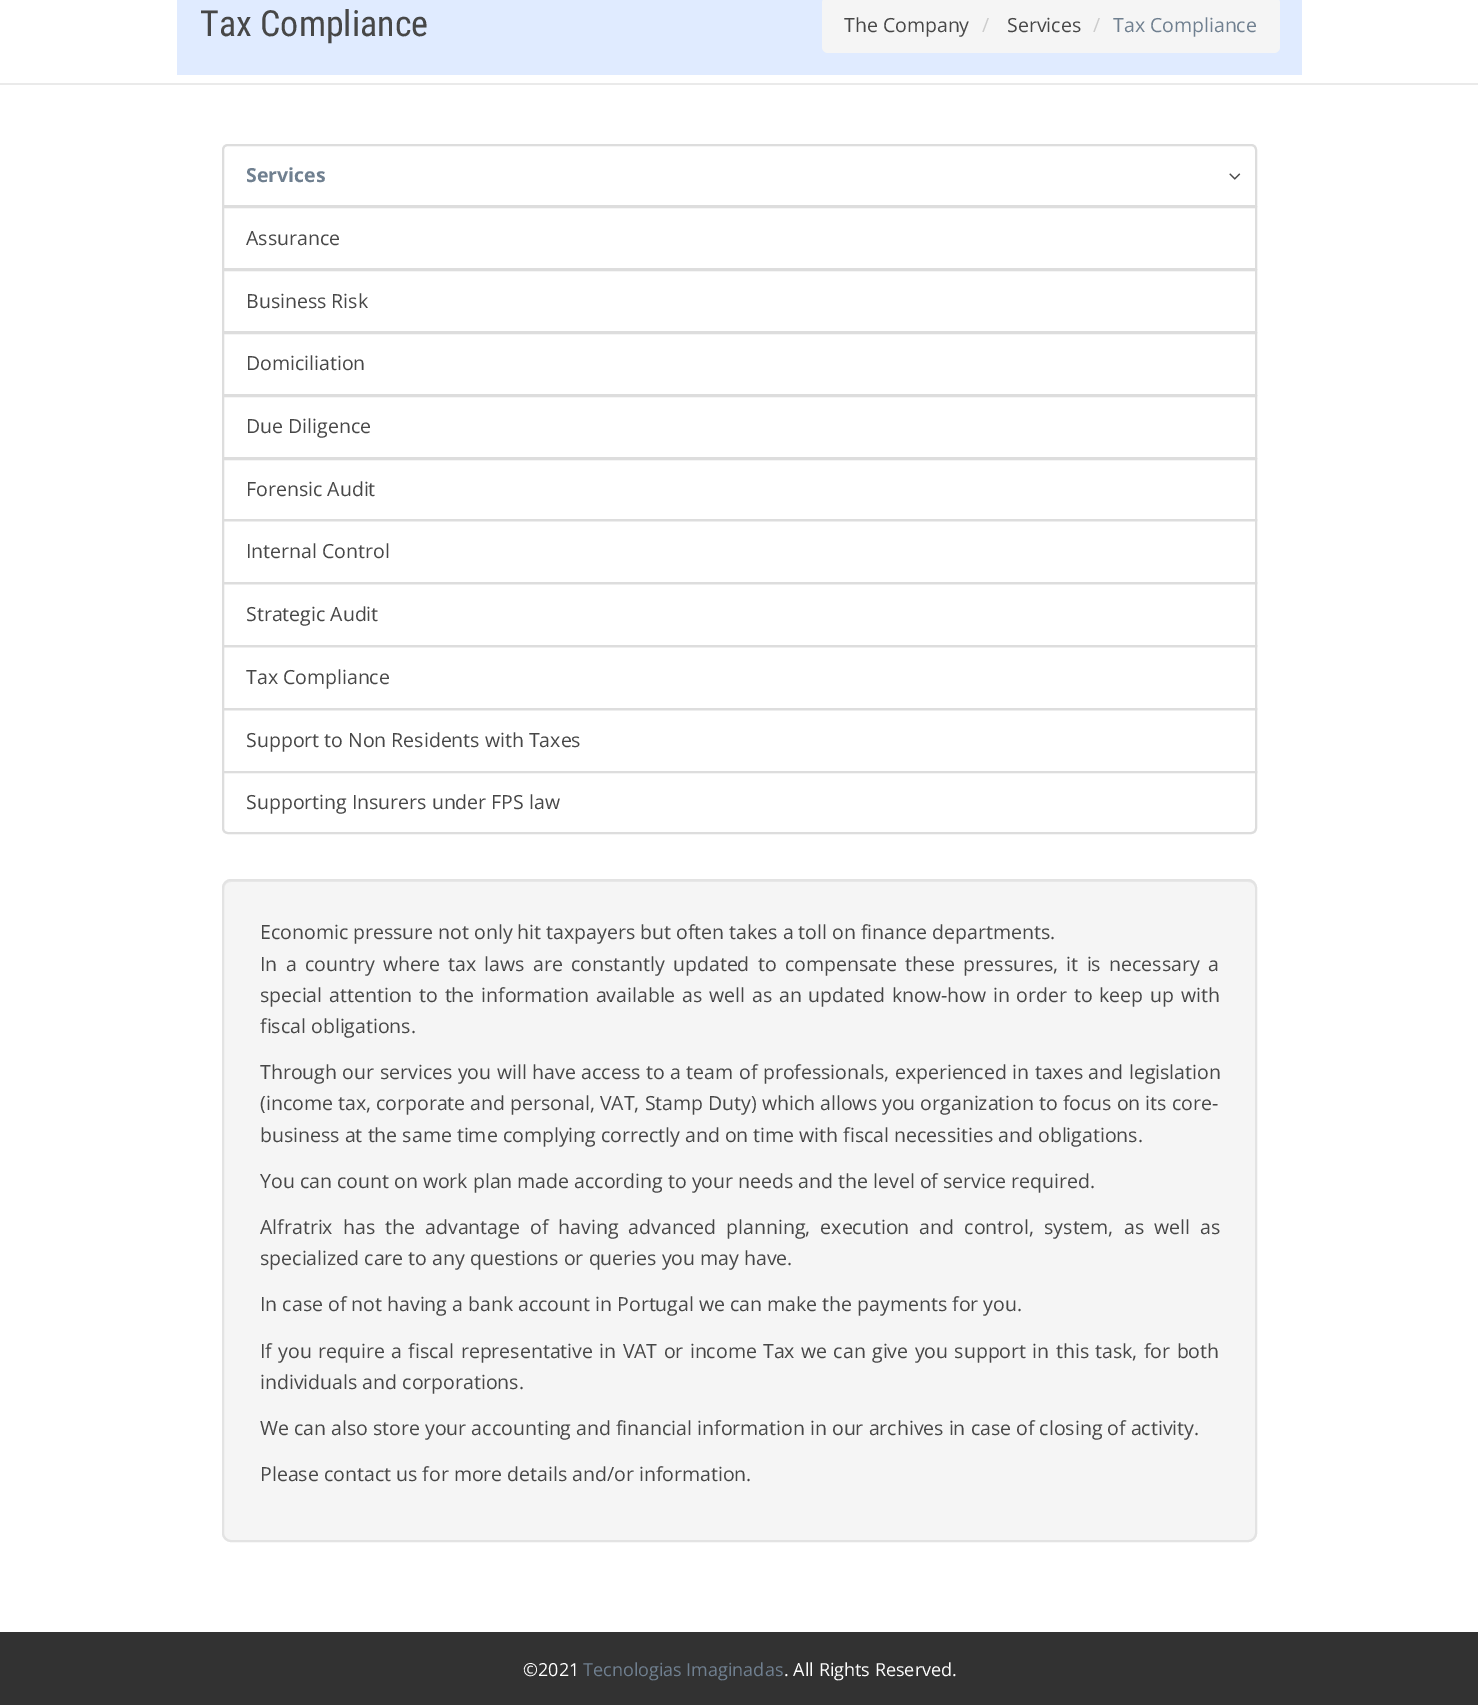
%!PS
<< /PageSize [1478 1705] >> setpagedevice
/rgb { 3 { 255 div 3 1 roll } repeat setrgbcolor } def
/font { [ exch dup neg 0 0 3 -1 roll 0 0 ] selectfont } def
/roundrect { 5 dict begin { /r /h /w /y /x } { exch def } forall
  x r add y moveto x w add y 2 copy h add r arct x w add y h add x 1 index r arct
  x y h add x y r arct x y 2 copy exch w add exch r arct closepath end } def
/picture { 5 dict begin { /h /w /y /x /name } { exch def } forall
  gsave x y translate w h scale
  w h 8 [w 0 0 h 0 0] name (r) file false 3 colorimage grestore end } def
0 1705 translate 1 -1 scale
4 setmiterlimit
255 255 255 rgb
0 0 1478 1705 rectfill
234 234 234 rgb
0 83 1478 2 rectfill
224 235 255 rgb
177 0 1125 75 rectfill
245 245 245 rgb
822 -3 458 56 6 roundrect fill
221 221 221 rgb
2 setlinewidth
223 207 1033 62 rectstroke
255 255 255 rgb
228 145 moveto 1251 145 lineto 1254 145 1256 147 1256 150 curveto 1256 206 lineto 223 206 lineto 223 150 lineto 223 147 225 145 228 145 curveto closepath gsave fill grestore
221 221 221 rgb
stroke
(img/1.rgb) 1229 173 12 7 picture
223 270 1033 62 rectstroke
223 333 1033 62 rectstroke
223 396 1033 62 rectstroke
223 459 1033 61 rectstroke
223 520 1033 63 rectstroke
223 583 1033 63 rectstroke
223 646 1033 63 rectstroke
223 709 1033 63 rectstroke
255 255 255 rgb
223 772 moveto 1256 772 lineto 1256 828 lineto 1256 831 1254 833 1251 833 curveto 228 833 lineto 225 833 223 831 223 828 curveto closepath gsave fill grestore
221 221 221 rgb
stroke
245 245 245 rgb
222 879 1035 663 9 roundrect fill
233 233 233 rgb
231 882 moveto 1248 882 lineto 1252 882 1256 885 1256 890 curveto 1256 885 1253 881 1248 881 curveto 232 881 lineto 227 881 224 885 224 890 curveto 224 885 227 882 231 882 curveto closepath fill
227 227 227 rgb
223 880 1033 661 8 roundrect stroke
50 50 50 rgb
0 1632 1478 73 rectfill
/RobotoCondensed-Regular 36 font
71 71 71 rgb
200 36 moveto (Tax Compliance) show
/OpenSans-Regular 19.5 font
844 32 moveto (The Company) show
204 204 204 rgb
982 32 moveto (/) show
71 71 71 rgb
1007 32 moveto (Services) show
204 204 204 rgb
1093 32 moveto (/) show
112 128 144 rgb
1113 32 moveto (Tax Compliance) show
/OpenSans-Bold 19.5 font
246 182 moveto (Services) show
/OpenSans-Regular 19.5 font
71 71 71 rgb
[
  [(Assurance) 246 245]
  [(Business Risk) 246 308]
  [(Domiciliation) 246 370]
  [(Due Diligence) 246 433]
  [(Forensic Audit) 246 496]
  [(Internal Control) 246 558]
  [(Strategic Audit) 246 621]
  [(Tax Compliance) 246 684]
  [(Support to Non Residents with Taxes) 246 747]
  [(Supporting Insurers under FPS law) 246 809]
  [(Economic pressure not only hit taxpayers but often takes a toll on finance departments.) 260 939]
] { aload pop moveto show } forall
260 971 moveto 3.25 0 32 (In a country where tax laws are constantly updated to compensate these pressures, it is necessary a) widthshow
260 1002 moveto 1.75 0 32 (special attention to the information available as well as an updated know-how in order to keep up with) widthshow
260 1033 moveto (fiscal obligations.) show
260 1079 moveto 0.5 0 32 (Through our services you will have access to a team of professionals, experienced in taxes and legislation) widthshow
[
  [(\(income tax, corporate and personal, VAT, Stamp Duty\) which allows you organization to focus on its core-) 260 1110]
  [(business at the same time complying correctly and on time with fiscal necessities and obligations.) 260 1142]
  [(You can count on work plan made according to your needs and the level of service required.) 260 1188]
] { aload pop moveto show } forall
260 1234 moveto 5.1 0 32 (Alfratrix has the advantage of having advanced planning, execution and control, system, as well as) widthshow
260 1265 moveto (specialized care to any questions or queries you may have.) show
260 1311 moveto (In case of not having a bank account in Portugal we can make the payments for you.) show
260 1358 moveto 1.3 0 32 (If you require a fiscal representative in VAT or income Tax we can give you support in this task, for both) widthshow
[
  [(individuals and corporations.) 260 1389]
  [(We can also store your accounting and financial information in our archives in case of closing of activity.) 260 1435]
  [(Please contact us for more details and/or information.) 260 1481]
] { aload pop moveto show } forall
/OpenSans-Regular 18 font
255 255 255 rgb
523 1676 moveto (©2021) show
112 128 144 rgb
583 1676 moveto (Tecnologias Imaginadas) show
255 255 255 rgb
784 1676 moveto (. All Rights Reserved.) show
showpage
